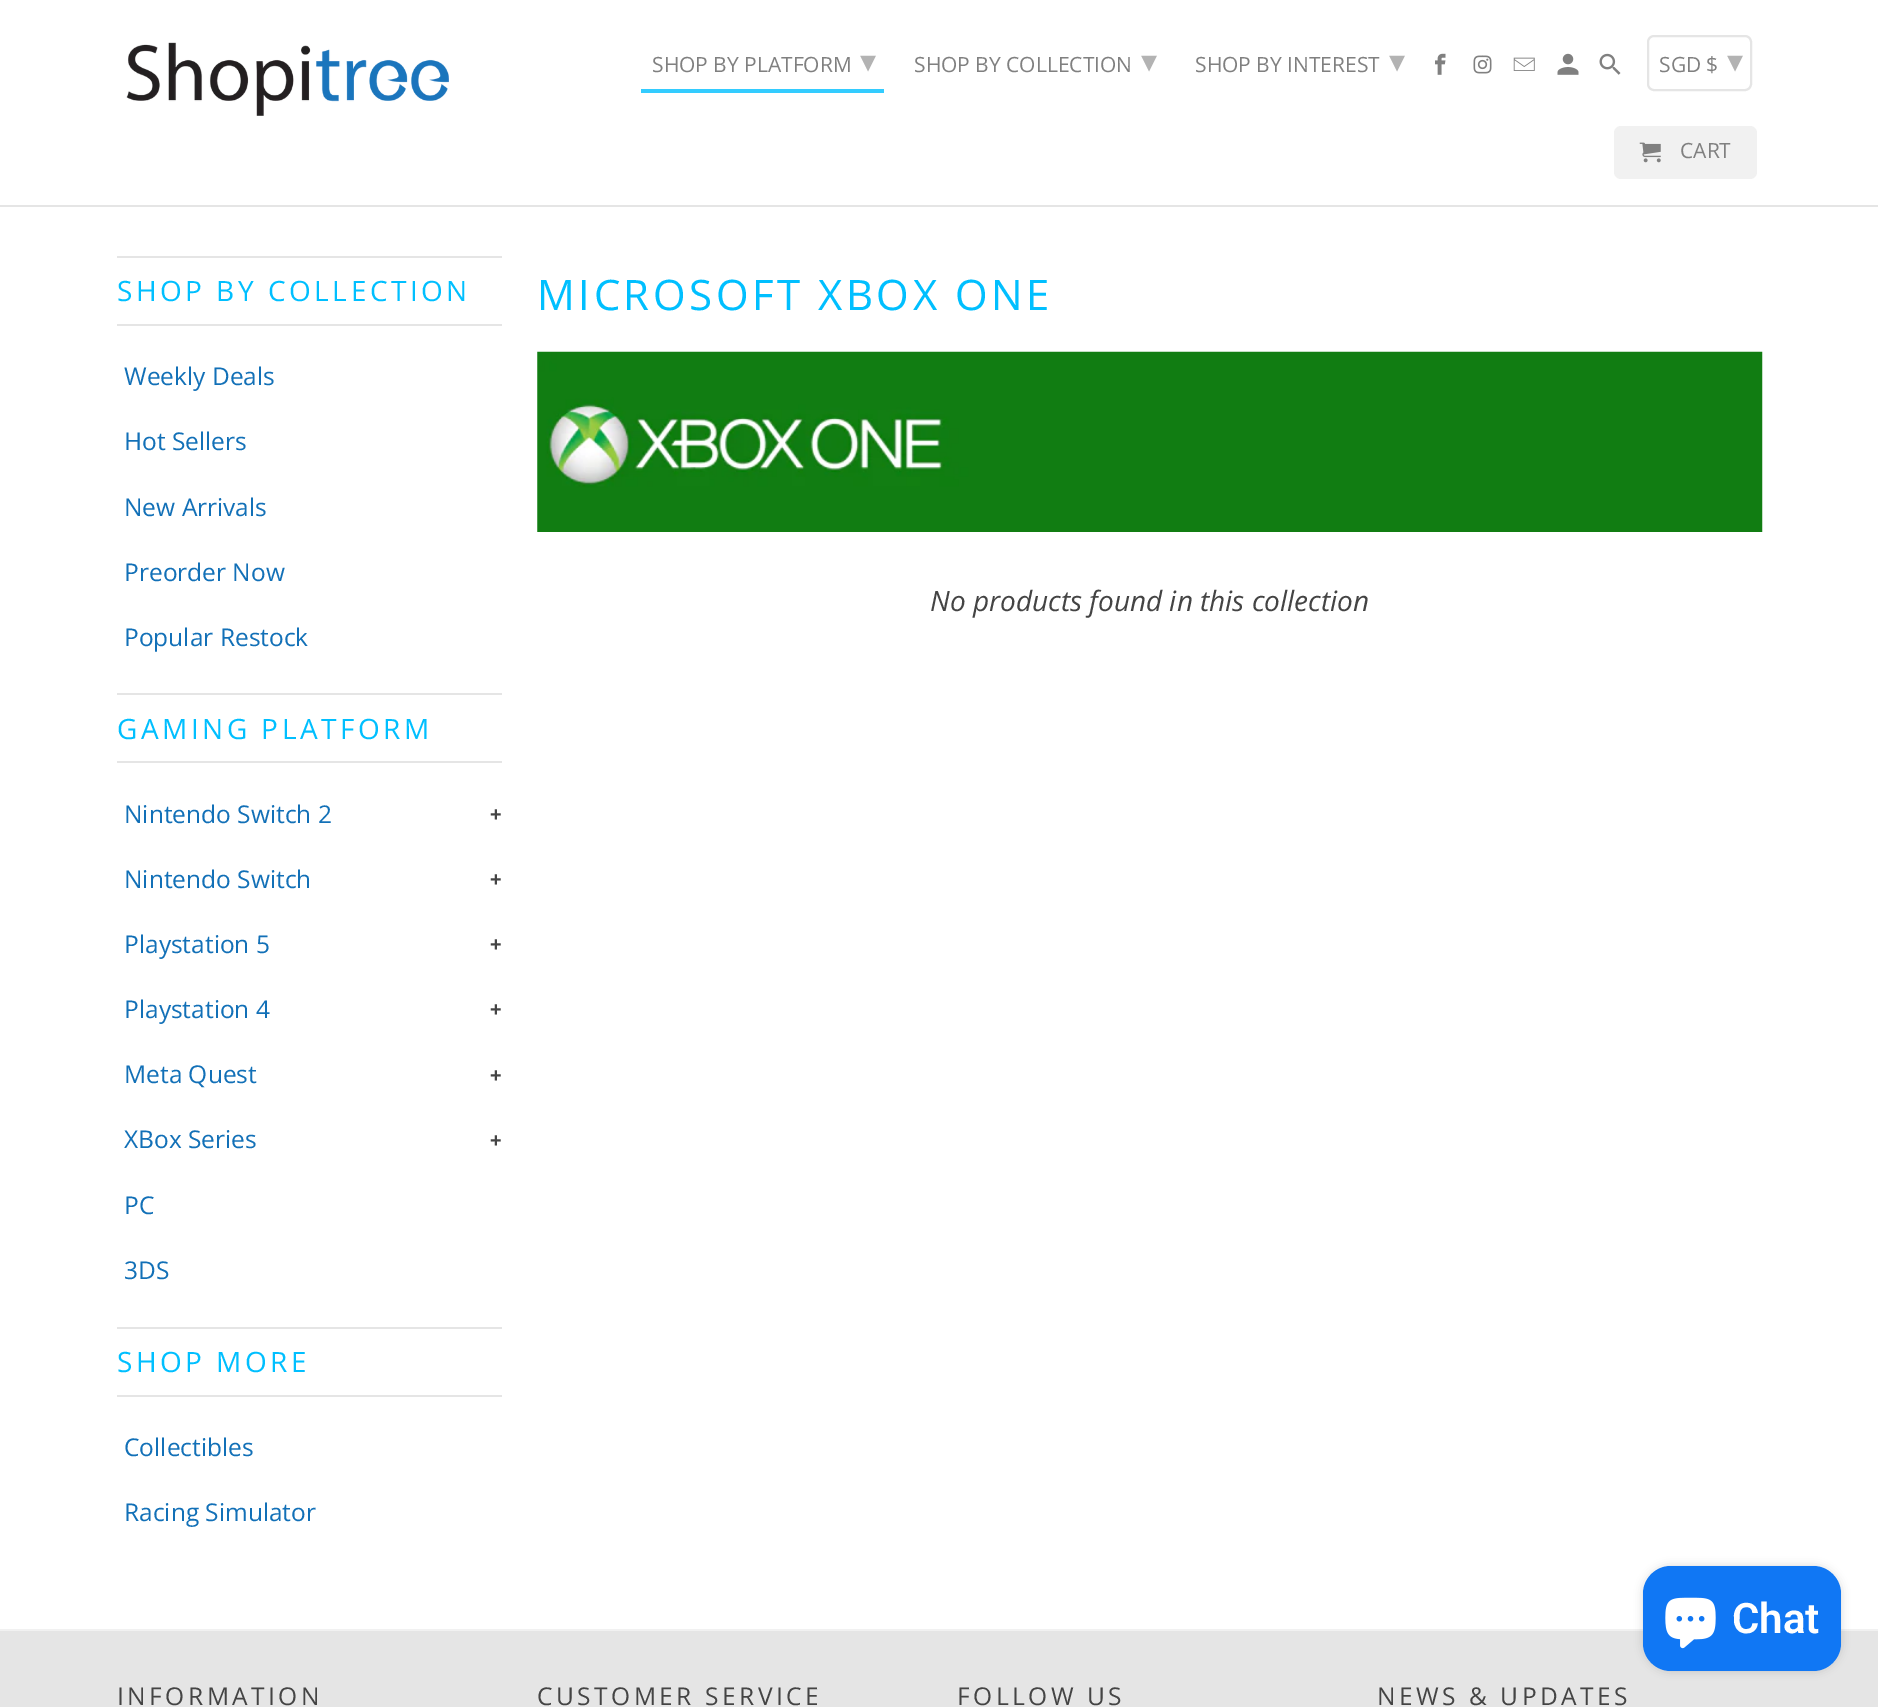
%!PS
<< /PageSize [1878 1707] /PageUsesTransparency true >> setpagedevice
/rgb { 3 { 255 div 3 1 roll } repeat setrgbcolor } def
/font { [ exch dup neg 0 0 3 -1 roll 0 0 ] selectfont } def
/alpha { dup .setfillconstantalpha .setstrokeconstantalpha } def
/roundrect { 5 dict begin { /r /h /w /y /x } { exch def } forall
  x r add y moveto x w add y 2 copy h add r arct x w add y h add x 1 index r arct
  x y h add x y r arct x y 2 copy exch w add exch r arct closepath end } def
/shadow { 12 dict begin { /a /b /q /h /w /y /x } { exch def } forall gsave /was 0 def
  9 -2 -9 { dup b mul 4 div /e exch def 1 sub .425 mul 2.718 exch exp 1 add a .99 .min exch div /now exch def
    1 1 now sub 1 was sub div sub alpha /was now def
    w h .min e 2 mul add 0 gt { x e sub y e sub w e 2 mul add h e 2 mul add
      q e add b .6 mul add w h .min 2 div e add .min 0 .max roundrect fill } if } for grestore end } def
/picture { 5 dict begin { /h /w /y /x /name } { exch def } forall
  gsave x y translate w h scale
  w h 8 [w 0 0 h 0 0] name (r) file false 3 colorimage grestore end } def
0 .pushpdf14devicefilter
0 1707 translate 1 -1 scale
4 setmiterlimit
255 255 255 rgb
0 0 1878 1707 rectfill
229 229 229 rgb
0 205 1878 2 rectfill
(img/1.rgb) 126 42 323 74 picture
51 204 255 rgb
641 89 243 4 rectfill
(img/2.rgb) 1435 53 11 22 picture
(img/3.rgb) 1473 55 19 19 picture
(img/4.rgb) 1513 57 22 14 picture
(img/5.rgb) 1557 53 22 22 picture
(img/6.rgb) 1599 53 22 22 picture
229 229 229 rgb
2 setlinewidth
1648 36 103 54 6 roundrect stroke
241 241 241 rgb
1614 126 143 53 7 roundrect fill
(img/7.rgb) 1639 142 22 21 picture
[
  [117 256 385 2 229 229 229]
  [117 324 385 2 229 229 229]
  [117 693 385 2 229 229 229]
  [117 761 385 2 229 229 229]
  [117 1327 385 2 229 229 229]
  [117 1395 385 2 229 229 229]
] { aload pop rgb rectfill } forall
(img/8.rgb) 537 351 1226 181 picture
0 1631 1878 76 rectfill
241 241 241 rgb
0 1629 1878 2 rectfill
0 0 0 rgb
1643 1566 198 105 28 4.5 0.15 shadow
16 119 244 rgb
1643 1566 198 105 28 roundrect fill
(img/9.rgb) 1665 1597 51 52 picture
/OpenSans-Regular 21 font
128 128 128 rgb
652 72 moveto (SHOP BY PLATFORM) show
/DejaVuSans-Regular 32 font
179 179 179 rgb
860 72 moveto (▾) show
/OpenSans-Regular 21 font
128 128 128 rgb
914 72 moveto (SHOP BY COLLECTION) show
/DejaVuSans-Regular 32 font
179 179 179 rgb
1141 72 moveto (▾) show
/OpenSans-Regular 21 font
128 128 128 rgb
1195 72 moveto (SHOP BY INTEREST) show
/DejaVuSans-Regular 32 font
179 179 179 rgb
1389 72 moveto (▾) show
/OpenSans-Regular 21 font
128 128 128 rgb
1659 72 moveto (SGD $) show
/DejaVuSans-Regular 32 font
179 179 179 rgb
1727 72 moveto (▾) show
/OpenSans-Regular 21 font
128 128 128 rgb
1680 158 moveto (CART) show
/OpenSans-Regular 28 font
0 191 255 rgb
117 301 moveto 3.5 0 (SHOP BY COLLECTION) ashow
/OpenSans-Regular 24.5 font
18 112 183 rgb
[
  [(Weekly Deals) 124 385]
  [(Hot Sellers) 124 450]
  [(New Arrivals) 124 516]
  [(Preorder Now) 124 581]
  [(Popular Restock) 124 646]
] { aload pop moveto show } forall
/OpenSans-Regular 28 font
0 191 255 rgb
117 739 moveto 3.5 0 (GAMING PLATFORM) ashow
/OpenSans-Regular 24.5 font
18 112 183 rgb
124 823 moveto (Nintendo Switch 2) show
/LiberationSans-Bold 20 font
68 68 68 rgb
490 821 moveto (+) show
/OpenSans-Regular 24.5 font
18 112 183 rgb
124 888 moveto (Nintendo Switch) show
/LiberationSans-Bold 20 font
68 68 68 rgb
490 886 moveto (+) show
/OpenSans-Regular 24.5 font
18 112 183 rgb
124 953 moveto (Playstation 5) show
/LiberationSans-Bold 20 font
68 68 68 rgb
490 951 moveto (+) show
/OpenSans-Regular 24.5 font
18 112 183 rgb
124 1018 moveto (Playstation 4) show
/LiberationSans-Bold 20 font
68 68 68 rgb
490 1016 moveto (+) show
/OpenSans-Regular 24.5 font
18 112 183 rgb
124 1083 moveto (Meta Quest) show
/LiberationSans-Bold 20 font
68 68 68 rgb
490 1082 moveto (+) show
/OpenSans-Regular 24.5 font
18 112 183 rgb
124 1148 moveto (XBox Series) show
/LiberationSans-Bold 20 font
68 68 68 rgb
490 1147 moveto (+) show
/OpenSans-Regular 24.5 font
18 112 183 rgb
124 1214 moveto (PC) show
124 1279 moveto (3DS) show
/OpenSans-Regular 28 font
0 191 255 rgb
117 1372 moveto 3.5 0 (SHOP MORE) ashow
/OpenSans-Regular 24.5 font
18 112 183 rgb
124 1456 moveto (Collectibles) show
124 1521 moveto (Racing Simulator) show
/OpenSans-Regular 42 font
0 191 255 rgb
537 310 moveto 3.5 0 (MICROSOFT XBOX ONE) ashow
/OpenSans-Italic 28 font
68 68 68 rgb
930 611 moveto (No products found in this collection) show
/OpenSans-Regular 24.5 font
117 1705 moveto 3.5 0 (INFORMATION) ashow
537 1705 moveto 3.5 0 (CUSTOMER SERVICE) ashow
957 1705 moveto 3.5 0 (FOLLOW US) ashow
1377 1705 moveto 3.5 0 (NEWS & UPDATES) ashow
/Roboto-SemiBold 42 font
255 255 255 rgb
1732 1633 moveto (Chat) show
.poppdf14devicefilter showpage
